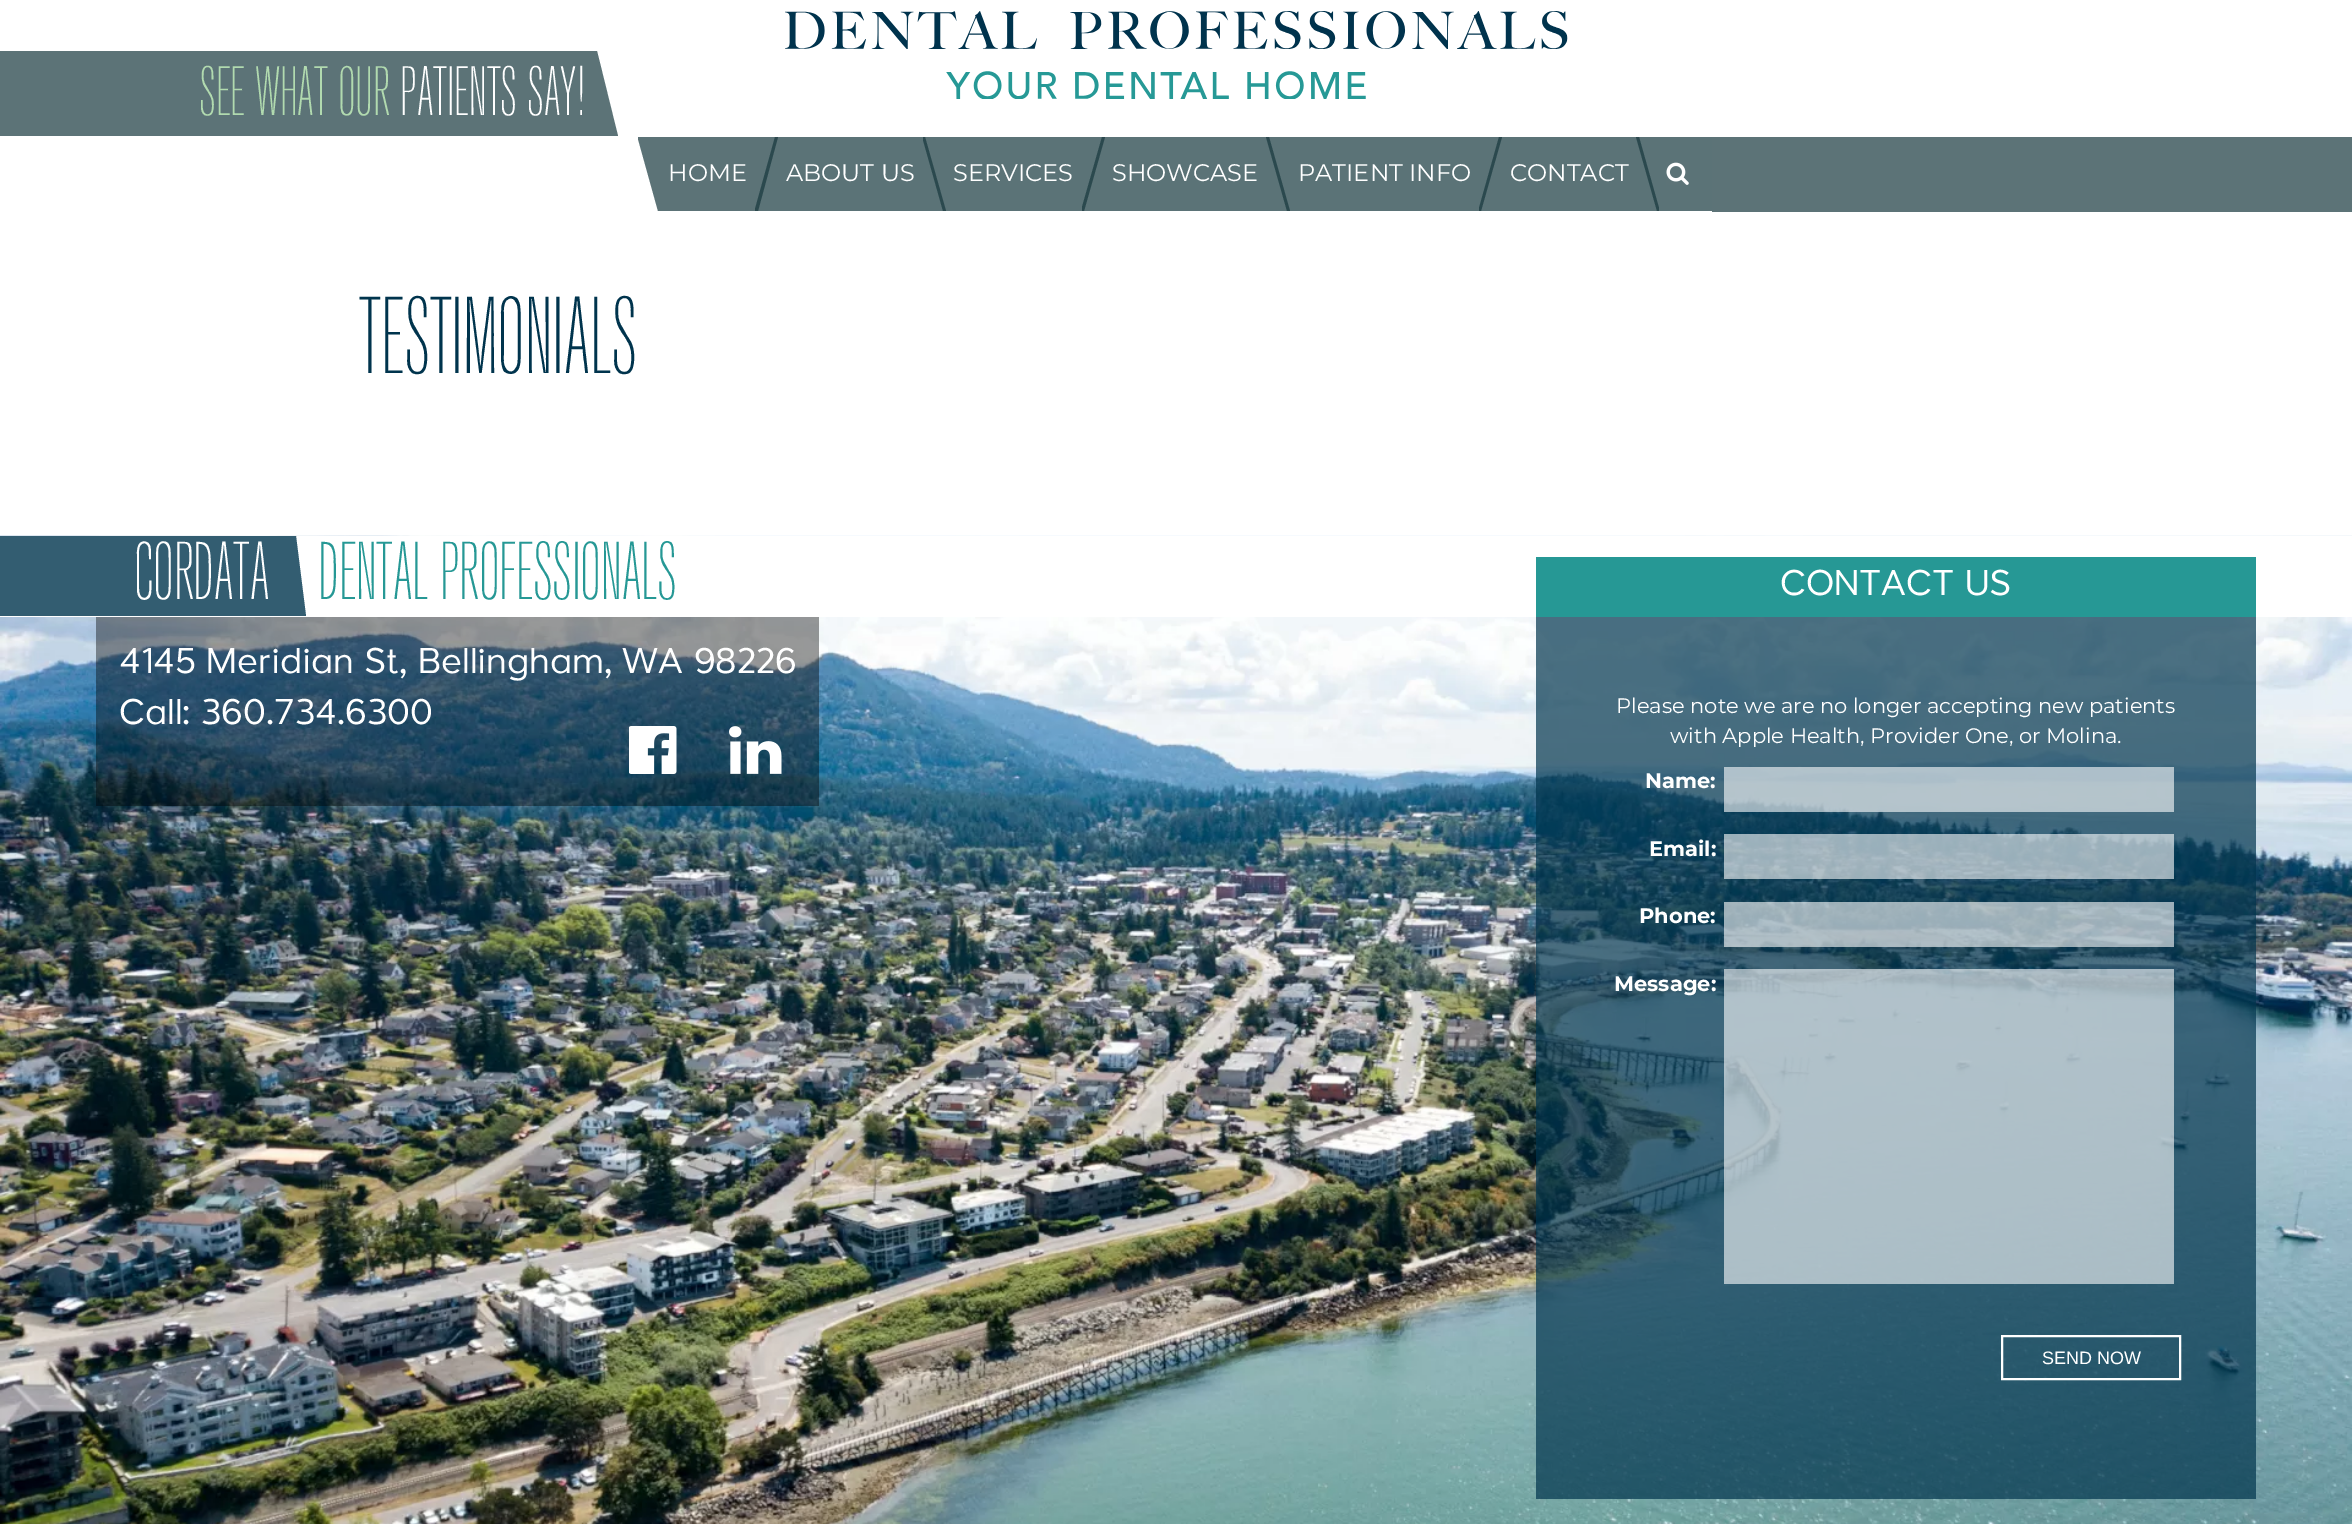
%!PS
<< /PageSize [2352 1524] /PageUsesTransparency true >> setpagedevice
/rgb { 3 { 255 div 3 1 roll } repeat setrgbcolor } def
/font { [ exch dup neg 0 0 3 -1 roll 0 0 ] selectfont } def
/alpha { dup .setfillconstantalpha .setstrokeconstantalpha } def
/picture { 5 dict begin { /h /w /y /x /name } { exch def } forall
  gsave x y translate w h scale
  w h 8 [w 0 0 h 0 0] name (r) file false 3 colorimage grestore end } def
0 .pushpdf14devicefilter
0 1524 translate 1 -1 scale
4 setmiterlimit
255 255 255 rgb
0 0 2352 1524 rectfill
92 115 119 rgb
0 51 moveto 0 136 lineto 618 136 lineto 597 51 lineto closepath fill
(img/1.rgb) 785 11 783 88 picture
638 137 moveto 778 137 lineto 758 211 lineto 658 211 lineto 638 139 lineto closepath fill
0.7 alpha
22 55 61 rgb
755 209 moveto 775 137 lineto 925 137 lineto 946 211 lineto 755 211 lineto closepath fill
923 137 moveto 1105 137 lineto 1084 211 lineto 943 211 lineto 923 140 lineto closepath fill
1082 207 moveto 1102 137 lineto 1269 137 lineto 1290 211 lineto 1082 211 lineto closepath fill
1502 137 moveto 1481 211 lineto 1287 211 lineto 1266 137 lineto closepath fill
1479 208 moveto 1499 137 lineto 1639 137 lineto 1659 208 lineto 1659 211 lineto 1479 211 lineto closepath fill
1712 211 moveto 1657 211 lineto 1636 137 lineto 1712 137 lineto closepath fill
1 alpha
92 115 119 rgb
1712 137 640 75 rectfill
(img/2.rgb) 1666 162 23 23 picture
(img/3.rgb) 0 535 2352 989 picture
255 255 255 rgb
0 536 2352 81 rectfill
51 93 113 rgb
306 616 moveto -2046 616 lineto -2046 536 lineto 296 536 lineto closepath fill
0.4 alpha
0 0 0 rgb
96 617 723 189 rectfill
1 alpha
(img/4.rgb) 629 726 48 48 picture
(img/5.rgb) 729 726 53 48 picture
[
  [1536 557 720 60 38 152 149]
] { aload pop rgb rectfill } forall
0.7 alpha
[
  [1536 617 720 882 0 52 77]
] { aload pop rgb rectfill } forall
0.6 alpha
[
  [1724 767 450 45 255 255 255]
  [1724 834 450 45 255 255 255]
  [1724 902 450 45 255 255 255]
  [1724 969 450 315 255 255 255]
] { aload pop rgb rectfill } forall
1 alpha
2 setlinewidth
2002 1336 178 43 rectstroke
/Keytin-ExtraLight 69 font
177 218 175 rgb
199 115 moveto (SEE WHAT OUR) show
255 255 255 rgb
400 115 moveto (PATIENTS SAY!) show
/Montserrat-Regular 24 font
[
  [(HOME) 668 181]
  [(ABOUT US) 786 181]
  [(SERVICES) 953 181]
  [(SHOWCASE) 1112 181]
  [(PATIENT INFO) 1298 181]
  [(CONTACT) 1510 181]
] { aload pop moveto show } forall
/Keytin-ExtraLight 108 font
0 52 77 rgb
359 373 moveto (TESTIMONIALS) show
/Keytin-ExtraLight 81 font
255 255 255 rgb
134 599 moveto (CORDATA) show
38 152 149 rgb
318 599 moveto (DENTAL PROFESSIONALS) show
/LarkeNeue-Regular 36 font
255 255 255 rgb
[
  [(4145 Meridian St, Bellingham, WA 98226) 119 673]
  [(Call: 360.734.6300) 119 724]
  [(CONTACT US) 1780 595]
] { aload pop moveto show } forall
/Montserrat-Regular 21 font
1616 713 moveto (Please note we are no longer accepting new patients) show
1670 743 moveto (with Apple Health, Provider One, or Molina.) show
/Montserrat-Bold 21 font
[
  [(Name:) 1645 788]
  [(Email:) 1649 856]
  [(Phone:) 1639 923]
  [(Message:) 1614 991]
] { aload pop moveto show } forall
/LiberationSans-Regular 18 font
2042 1364 moveto (SEND NOW) show
.poppdf14devicefilter showpage
